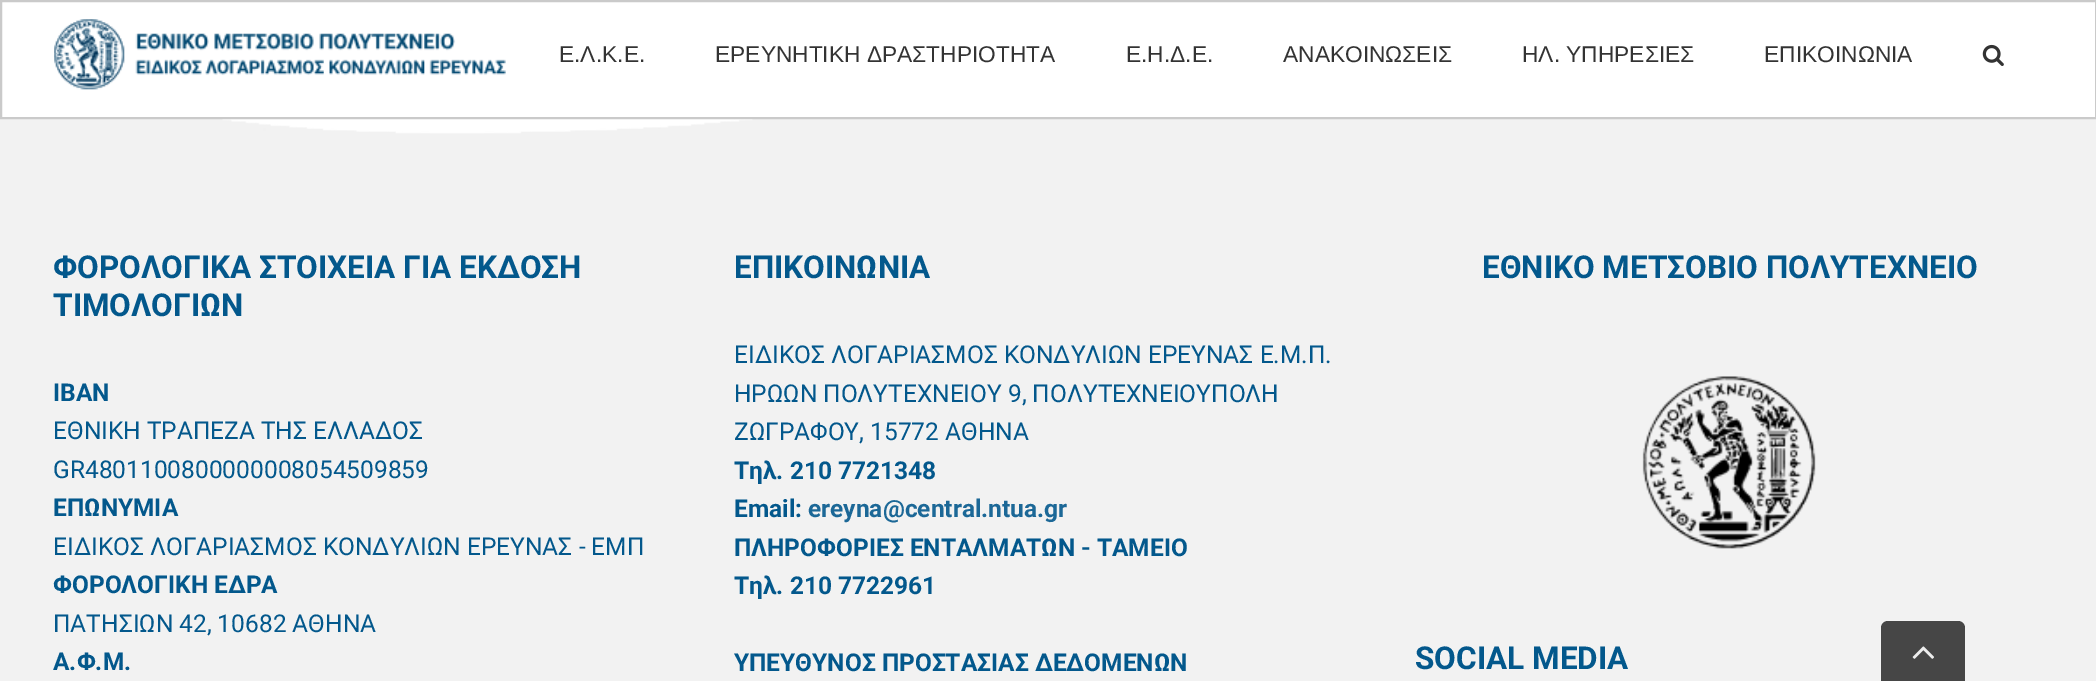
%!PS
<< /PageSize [2096 681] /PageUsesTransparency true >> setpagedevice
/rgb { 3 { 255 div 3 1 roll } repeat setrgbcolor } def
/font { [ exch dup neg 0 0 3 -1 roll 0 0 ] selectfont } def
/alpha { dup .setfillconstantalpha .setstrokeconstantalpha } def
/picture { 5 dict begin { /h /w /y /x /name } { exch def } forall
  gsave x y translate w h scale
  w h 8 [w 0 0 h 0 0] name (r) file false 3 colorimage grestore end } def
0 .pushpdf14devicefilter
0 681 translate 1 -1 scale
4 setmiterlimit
255 255 255 rgb
0 0 2096 681 rectfill
(img/1.rgb) 0 2 2096 171 picture
0.99 alpha
1 1 moveto 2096 1 lineto 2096 118 lineto 1 118 lineto closepath fill
1 alpha
202 202 202 rgb
2 setlinewidth
1 1 moveto 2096 1 lineto 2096 118 lineto 1 118 lineto closepath stroke
(img/2.rgb) 54 19 452 71 picture
(img/3.rgb) 1982 44 22 22 picture
242 242 242 rgb
0 173 2096 508 rectfill
(img/4.rgb) 1642 376 174 173 picture
70 70 70 rgb
1888 621 moveto 1958 621 lineto 1962 621 1965 624 1965 628 curveto 1965 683 lineto 1881 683 lineto 1881 628 lineto 1881 624 1884 621 1888 621 curveto closepath fill
(img/5.rgb) 1912 646 22 13 picture
/LiberationSans-Regular 22.75 font
51 51 51 rgb
[
  [(Ε.Λ.Κ.Ε.) 559 62]
  [(ΕΡΕΥΝΗΤΙΚΗ ΔΡΑΣΤΗΡΙΟΤΗΤΑ) 715 62]
  [(Ε.Η.Δ.Ε.) 1126 62]
  [(ΑΝΑΚΟΙΝΩΣΕΙΣ) 1283 62]
  [(ΗΛ. ΥΠΗΡΕΣΙΕΣ) 1522 62]
  [(ΕΠΙΚΟΙΝΩΝΙΑ) 1764 62]
] { aload pop moveto show } forall
/Roboto-Bold 31.5 font
3 88 140 rgb
53 278 moveto (ΦΟΡΟΛΟΓΙΚΑ ΣΤΟΙΧΕΙΑ ΓΙΑ ΕΚΔΟΣΗ) show
53 316 moveto (ΤΙΜΟΛΟΓΙΩΝ) show
/Roboto-Bold 24.5 font
53 401 moveto (IBAN) show
/Roboto-Regular 24.5 font
53 439 moveto (ΕΘΝΙΚΗ ΤΡΑΠΕΖΑ ΤΗΣ ΕΛΛΑΔΟΣ) show
53 478 moveto (GR4801100800000008054509859) show
/Roboto-Bold 24.5 font
53 516 moveto (ΕΠΩΝΥΜΙΑ) show
/Roboto-Regular 24.5 font
53 555 moveto (ΕΙΔΙΚΟΣ ΛΟΓΑΡΙΑΣΜΟΣ ΚΟΝΔΥΛΙΩΝ ΕΡΕΥΝΑΣ - ΕΜΠ) show
/Roboto-Bold 24.5 font
53 593 moveto (ΦΟΡΟΛΟΓΙΚΗ ΕΔΡΑ) show
/Roboto-Regular 24.5 font
53 632 moveto (ΠΑΤΗΣΙΩΝ 42, 10682 ΑΘΗΝΑ) show
/Roboto-Bold 24.5 font
53 670 moveto (A.Φ.Μ.) show
/Roboto-Bold 31.5 font
734 278 moveto (ΕΠΙΚΟΙΝΩΝΙΑ) show
/Roboto-Regular 24.5 font
[
  [(ΕΙΔΙΚΟΣ ΛΟΓΑΡΙΑΣΜΟΣ ΚΟΝΔΥΛΙΩΝ ΕΡΕΥΝΑΣ Ε.Μ.Π.) 734 363]
  [(ΗΡΩΩΝ ΠΟΛΥΤΕΧΝΕΙΟΥ 9, ΠΟΛΥΤΕΧΝΕΙΟΥΠΟΛΗ) 734 402]
  [(ΖΩΓΡΑΦΟΥ, 15772 ΑΘΗΝΑ) 734 440]
] { aload pop moveto show } forall
/Roboto-Bold 24.5 font
734 479 moveto (Τηλ. 210 7721348) show
734 517 moveto (Email:) show
28 104 151 rgb
808 517 moveto (ereyna@central.ntua.gr) show
3 88 140 rgb
[
  [(ΠΛΗΡΟΦΟΡΙΕΣ ΕΝΤΑΛΜΑΤΩΝ - ΤΑΜΕΙΟ) 734 556]
  [(Τηλ. 210 7722961) 734 594]
  [(ΥΠΕΥΘYΝΟΣ ΠΡΟΣΤΑΣΙΑΣ ΔΕΔΟΜΕΝΩΝ) 734 671]
] { aload pop moveto show } forall
/Roboto-Bold 31.5 font
1482 278 moveto (ΕΘΝΙΚΟ ΜΕΤΣΟΒΙΟ ΠΟΛΥΤΕΧΝΕΙΟ) show
1415 669 moveto (SOCIAL MEDIA) show
.poppdf14devicefilter showpage
